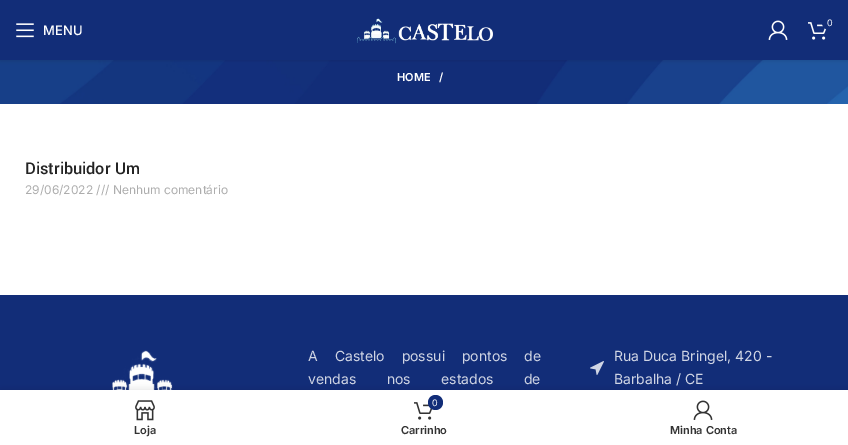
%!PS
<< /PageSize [848 445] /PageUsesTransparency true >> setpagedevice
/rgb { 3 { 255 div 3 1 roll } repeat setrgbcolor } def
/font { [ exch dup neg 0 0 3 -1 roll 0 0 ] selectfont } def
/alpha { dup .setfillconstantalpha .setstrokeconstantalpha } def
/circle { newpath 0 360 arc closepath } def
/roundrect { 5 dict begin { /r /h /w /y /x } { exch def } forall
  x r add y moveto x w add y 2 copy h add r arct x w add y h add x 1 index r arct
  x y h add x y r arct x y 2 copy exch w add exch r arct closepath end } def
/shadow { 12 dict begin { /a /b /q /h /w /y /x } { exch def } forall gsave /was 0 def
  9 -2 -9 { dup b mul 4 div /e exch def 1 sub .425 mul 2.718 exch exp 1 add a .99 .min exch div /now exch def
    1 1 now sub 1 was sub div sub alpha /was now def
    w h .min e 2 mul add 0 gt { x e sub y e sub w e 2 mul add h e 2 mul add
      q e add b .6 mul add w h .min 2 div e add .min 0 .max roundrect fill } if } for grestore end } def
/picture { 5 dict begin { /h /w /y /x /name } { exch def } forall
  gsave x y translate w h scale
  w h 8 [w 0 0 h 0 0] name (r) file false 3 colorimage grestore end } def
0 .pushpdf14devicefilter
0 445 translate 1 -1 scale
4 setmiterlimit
255 255 255 rgb
0 0 848 445 rectfill
(img/5.rgb) 0 60 848 44 picture
0 0 0 rgb
0 1 848 60 0 1.5 0.1 shadow
18 45 120 rgb
0 0 848 60 rectfill
(img/1.rgb) 357 18 136 26 picture
(img/2.rgb) 768 20 20 20 picture
(img/3.rgb) 808 22 19 18 picture
829.5 22.5 7.5 circle fill
(img/4.rgb) 16 23 18 15 picture
0 295 848 95 rectfill
(img/6.rgb) 112 350 61 40 picture
(img/7.rgb) 590 361 14 14 picture
0 0 0 rgb
0 390 848 55 0 4.5 0.12 shadow
255 255 255 rgb
0 390 848 55 rectfill
(img/8.rgb) 135 400 20 21 picture
(img/9.rgb) 414 402 19 18 picture
18 45 120 rgb
435.5 402.5 7.5 circle fill
(img/10.rgb) 693 400 20 20 picture
/Inter-Regular 9 font
255 255 255 rgb
827 26 moveto (0) show
/Inter-Medium 13 font
43 35 moveto (MENU) show
/Inter-SemiBold 11 font
397 81 moveto (HOME) show
439 81 moveto (/) show
/Yantramanav-Medium 18 font
36 36 36 rgb
25 174 moveto (Distribuidor Um) show
/Inter-Regular 12 font
173 173 173 rgb
25 194 moveto (29/06/2022 /// Nenhum comentário) show
/Inter-Regular 14 font
208 213 228 rgb
308 361 moveto 13 0 32 (A Castelo possui pontos de) widthshow
308 384 moveto 26.5 0 32 (vendas nos estados de) widthshow
614 361 moveto (Rua Duca Bringel, 420 -) show
614 384 moveto (Barbalha / CE) show
/Inter-SemiBold 11 font
51 51 51 rgb
134 434 moveto (Loja) show
/Inter-Regular 9 font
255 255 255 rgb
432 406 moveto (0) show
/Inter-SemiBold 11 font
51 51 51 rgb
401 434 moveto (Carrinho) show
670 434 moveto (Minha Conta) show
.poppdf14devicefilter showpage
